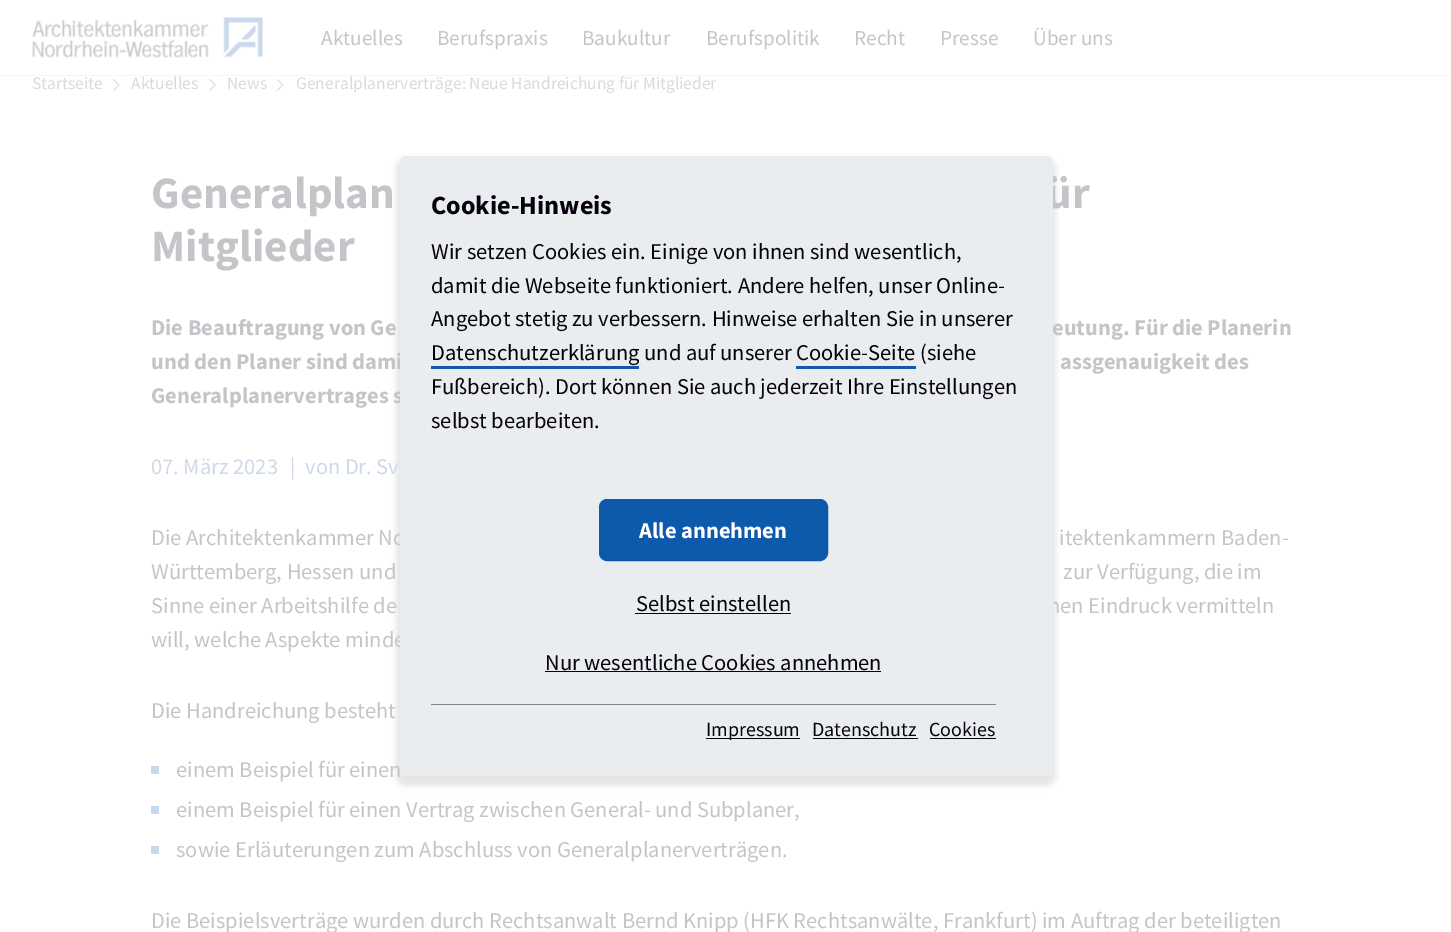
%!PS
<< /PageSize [1451 932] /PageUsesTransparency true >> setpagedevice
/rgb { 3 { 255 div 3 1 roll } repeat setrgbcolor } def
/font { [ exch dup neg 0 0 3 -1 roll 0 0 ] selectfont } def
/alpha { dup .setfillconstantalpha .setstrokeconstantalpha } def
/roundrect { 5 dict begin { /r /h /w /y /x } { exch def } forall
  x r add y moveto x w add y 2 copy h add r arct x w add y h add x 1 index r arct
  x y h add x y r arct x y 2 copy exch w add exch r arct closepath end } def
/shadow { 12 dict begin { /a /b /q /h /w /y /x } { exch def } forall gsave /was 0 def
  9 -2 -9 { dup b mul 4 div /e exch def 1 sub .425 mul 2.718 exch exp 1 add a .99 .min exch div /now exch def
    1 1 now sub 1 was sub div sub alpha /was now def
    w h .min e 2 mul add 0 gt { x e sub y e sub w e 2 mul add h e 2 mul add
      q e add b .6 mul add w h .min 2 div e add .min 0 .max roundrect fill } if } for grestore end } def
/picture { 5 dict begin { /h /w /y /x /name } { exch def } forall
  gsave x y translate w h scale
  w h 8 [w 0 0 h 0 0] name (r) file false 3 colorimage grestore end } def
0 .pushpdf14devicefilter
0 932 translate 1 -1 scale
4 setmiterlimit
255 255 255 rgb
0 0 1451 932 rectfill
246 246 246 rgb
0 75 1451 1 rectfill
(img/1.rgb) 32 17 232 41 picture
(img/2.rgb) 113 79 7 12 picture
(img/3.rgb) 209 79 7 12 picture
(img/4.rgb) 276 79 8 12 picture
[
  [151 766 8 8 199 217 236]
  [151 806 8 8 199 217 236]
  [151 846 8 8 199 217 236]
] { aload pop rgb rectfill } forall
0 0 0 rgb
396 159 660 627 10 3 0.1 shadow
/SourceSansPro-Regular 21.25 font
198 196 200 rgb
[
  [(Aktuelles) 321 45]
  [(Berufspraxis) 437 45]
  [(Baukultur) 582 45]
  [(Berufspolitik) 706 45]
  [(Recht) 854 45]
  [(Presse) 940 45]
  [(Über uns) 1033 45]
] { aload pop moveto show } forall
/SourceSansPro-Regular 17.5 font
218 218 218 rgb
[
  [(Startseite) 32 89]
  [(Aktuelles) 131 89]
  [(News) 227 89]
  [(Generalplanerverträge: Neue Handreichung für Mitglieder) 296 89]
] { aload pop moveto show } forall
/SourceSansPro-Bold 45 font
198 196 200 rgb
[
  [(Generalplan) 151 208]
  [(ür) 1046 208]
  [(Mitglieder) 151 261]
] { aload pop moveto show } forall
/SourceSansPro-Bold 22.5 font
[
  [(Die Beauftragung von Ge) 151 335]
  [(eutung. Für die Planerin) 1052 335]
  [(und den Planer sind dami) 151 369]
  [(assgenauigkeit des) 1060 369]
  [(Generalplanervertrages s) 151 403]
] { aload pop moveto show } forall
/SourceSansPro-Regular 22.5 font
206 217 233 rgb
[
  [(07. März 2023) 151 474]
  [(|) 290 474]
  [(von Dr. Sv) 305 474]
] { aload pop moveto show } forall
198 196 200 rgb
[
  [(Die Architektenkammer No) 151 545]
  [(itektenkammern Baden-) 1059 545]
  [(Württemberg, Hessen und) 151 579]
  [(zur Verfügung, die im) 1063 579]
  [(Sinne einer Arbeitshilfe de) 151 613]
  [(nen Eindruck vermitteln) 1048 613]
  [(will, welche Aspekte minde) 151 647]
  [(Die Handreichung besteht) 151 718]
  [(einem Beispiel für einen) 176 777]
  [(einem Beispiel für einen Vertrag zwischen General- und Subplaner,) 176 817]
  [(sowie Erläuterungen zum Abschluss von Generalplanerverträgen.) 176 857]
  [(Die Beispielsverträge wurden durch Rechtsanwalt Bernd Knipp \(HFK Rechtsanwälte, Frankfurt\) im Auftrag der beteiligten) 151 928]
] { aload pop moveto show } forall
233 237 239 rgb
400 156 653 620 6 roundrect fill
/SourceSansPro-Bold 26.25 font
7 0 15 rgb
431 214 moveto (Cookie-Hinweis) show
/SourceSansPro-Regular 22.5 font
[
  [(Wir setzen Cookies ein. Einige von ihnen sind wesentlich,) 431 259]
  [(damit die Webseite funktioniert. Andere helfen, unser Online-) 431 293]
  [(Angebot stetig zu verbessern. Hinweise erhalten Sie in unserer) 431 326]
] { aload pop moveto show } forall
0 0 0 rgb
431 360 moveto (Datenschutzerklärung) show
13 89 171 rgb
431 366 208 3 rectfill
7 0 15 rgb
644 360 moveto (und auf unserer) show
0 0 0 rgb
796 360 moveto (Cookie-Seite) show
13 89 171 rgb
796 366 120 3 rectfill
7 0 15 rgb
[
  [(\(siehe) 920 360]
  [(Fußbereich\). Dort können Sie auch jederzeit Ihre Einstellungen) 431 394]
  [(selbst bearbeiten.) 431 428]
] { aload pop moveto show } forall
13 89 171 rgb
600.5 500.5 226 59 6.5 roundrect gsave fill grestore
3 setlinewidth
stroke
/SourceSansPro-Bold 22.5 font
255 255 255 rgb
639 538 moveto (Alle annehmen) show
/SourceSansPro-Regular 22.5 font
7 0 15 rgb
636 611 moveto (Selbst einstellen) show
635 613 156 1 rectfill
545 670 moveto (Nur wesentliche Cookies annehmen) show
[
  [545 671 336 1 7 0 15]
  [431 704 565 1 124 135 142]
  [706 738 94 1 7 0 15]
] { aload pop rgb rectfill } forall
/SourceSansPro-Regular 20 font
706 736 moveto (Impressum) show
812 736 moveto (Datenschutz) show
813 738 105 1 rectfill
929 736 moveto (Cookies) show
930 738 66 1 rectfill
.poppdf14devicefilter showpage
